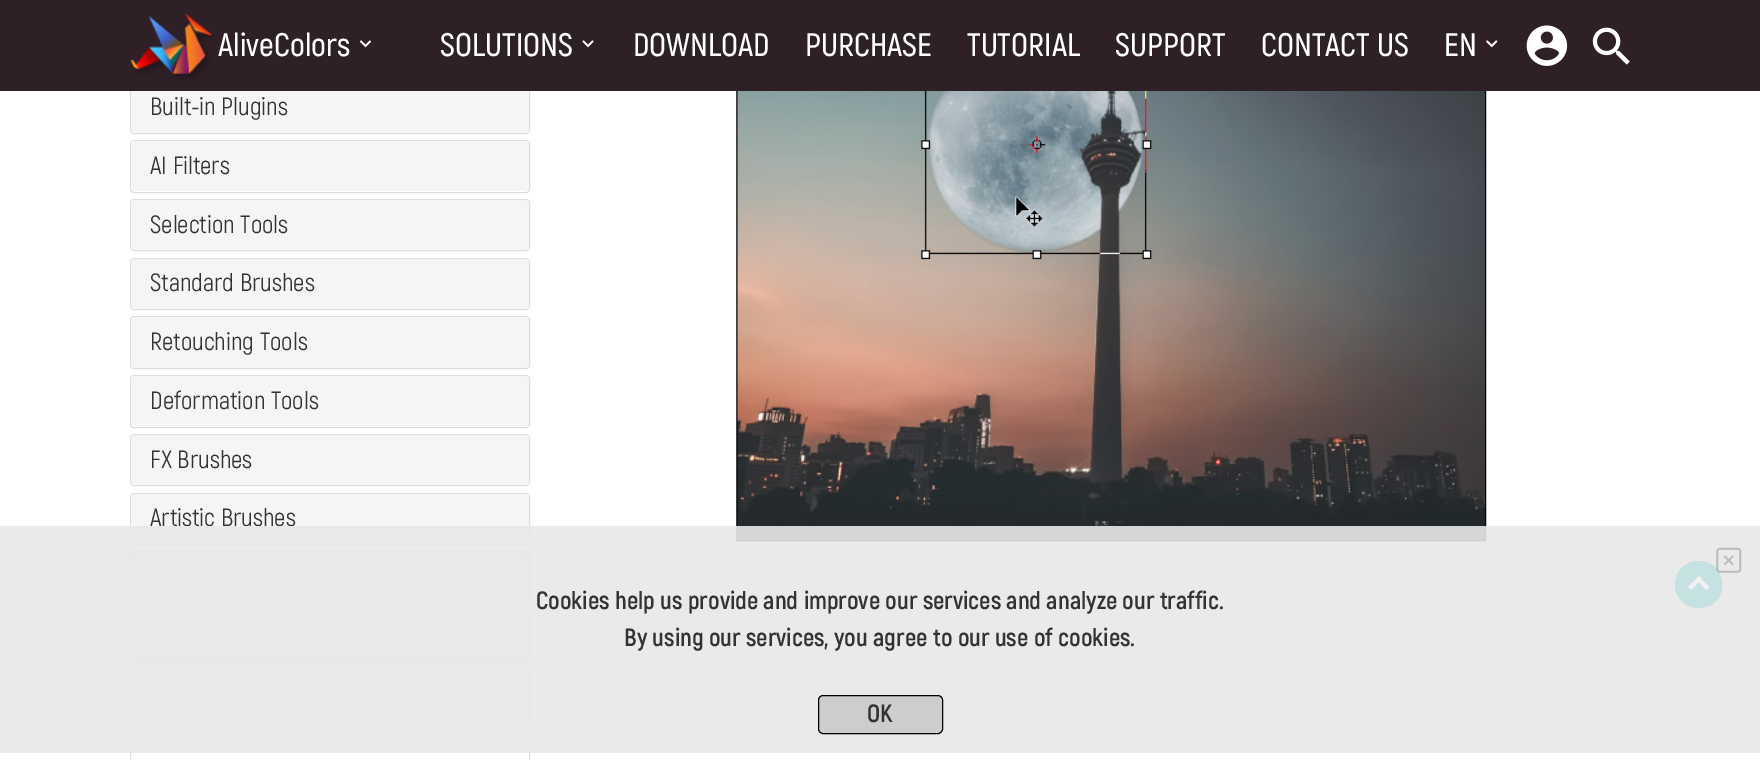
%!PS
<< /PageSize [1760 760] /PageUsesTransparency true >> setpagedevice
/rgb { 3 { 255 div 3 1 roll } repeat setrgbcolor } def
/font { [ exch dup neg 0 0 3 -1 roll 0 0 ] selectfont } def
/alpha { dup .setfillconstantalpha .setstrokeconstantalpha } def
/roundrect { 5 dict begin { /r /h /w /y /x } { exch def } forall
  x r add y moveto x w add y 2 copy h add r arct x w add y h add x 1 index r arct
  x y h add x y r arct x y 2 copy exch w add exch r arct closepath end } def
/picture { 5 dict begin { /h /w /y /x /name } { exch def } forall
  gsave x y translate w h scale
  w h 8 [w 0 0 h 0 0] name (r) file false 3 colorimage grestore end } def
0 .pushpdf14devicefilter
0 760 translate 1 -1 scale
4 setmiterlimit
255 255 255 rgb
0 0 1760 760 rectfill
221 221 221 rgb
130.5 81.5 399 52 3.5 roundrect stroke
245 245 245 rgb
131 83 398 50 2.5 roundrect fill
47 31 39 rgb
0 0 1760 91 rectfill
(img/1.rgb) 130 12 84 68 picture
(img/2.rgb) 360 40 11 8 picture
(img/3.rgb) 582 40 12 8 picture
(img/4.rgb) 1486 40 12 8 picture
(img/5.rgb) 1526 25 42 41 picture
(img/6.rgb) 1592 27 38 38 picture
221 221 221 rgb
130.5 140.5 399 52 3.5 roundrect stroke
245 245 245 rgb
131 141 398 50 2.5 roundrect fill
221 221 221 rgb
130.5 199.5 399 51 3.5 roundrect stroke
245 245 245 rgb
131 200 398 50 2.5 roundrect fill
221 221 221 rgb
130.5 258.5 399 51 3.5 roundrect stroke
245 245 245 rgb
131 259 398 50 2.5 roundrect fill
221 221 221 rgb
130.5 316.5 399 52 3.5 roundrect stroke
245 245 245 rgb
131 318 398 50 2.5 roundrect fill
221 221 221 rgb
130.5 375.5 399 52 3.5 roundrect stroke
245 245 245 rgb
131 376 398 50 2.5 roundrect fill
221 221 221 rgb
130.5 434.5 399 51 3.5 roundrect stroke
245 245 245 rgb
131 435 398 50 2.5 roundrect fill
221 221 221 rgb
130.5 493.5 399 51 3.5 roundrect stroke
245 245 245 rgb
131 494 398 50 2.5 roundrect fill
221 221 221 rgb
130.5 551.5 399 52 3.5 roundrect stroke
245 245 245 rgb
131 553 398 50 2.5 roundrect fill
221 221 221 rgb
130.5 610.5 399 52 3.5 roundrect stroke
245 245 245 rgb
131 611 398 50 2.5 roundrect fill
221 221 221 rgb
130.5 669.5 399 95 3.5 roundrect stroke
245 245 245 rgb
133.5 670 moveto 526.5 670 lineto 528 670 529 671 529 672.5 curveto 529 720 lineto 131 720 lineto 131 672.5 lineto 131 671 132 670 133.5 670 curveto closepath fill
(img/7.rgb) 736 91 751 451 picture
/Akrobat-SemiBold 32.5 font
255 255 255 rgb
[
  [(AliveColors) 218 56]
  [(SOLUTIONS) 440 56]
  [(DOWNLOAD) 633 56]
  [(PURCHASE) 805 56]
  [(TUTORIAL) 967 56]
  [(SUPPORT) 1115 56]
  [(CONTACT US) 1261 56]
  [(EN) 1444 56]
] { aload pop moveto show } forall
/Akrobat-Regular 25 font
51 51 51 rgb
[
  [(Built-in Plugins) 150 115]
  [(AI Filters) 150 174]
  [(Selection Tools) 150 233]
  [(Standard Brushes) 150 291]
  [(Retouching Tools) 150 350]
  [(Deformation Tools) 150 409]
  [(FX Brushes) 150 468]
  [(Artistic Brushes) 150 526]
] { aload pop moveto show } forall
0.9 alpha
232 232 232 rgb
0 526 1760 227 rectfill
1 alpha
(img/8.rgb) 1716 547 26 26 picture
/Akrobat-Bold 25 font
51 51 51 rgb
536 609 moveto (Cookies help us provide and improve our services and analyze our traffic.) show
624 646 moveto (By using our services, you agree to our use of cookies.) show
205 205 205 rgb
818.5 695.5 124 38 4.5 roundrect gsave fill grestore
0 0 0 rgb
stroke
51 51 51 rgb
867 722 moveto (OK) show
0.3 alpha
113 204 205 rgb
1699 608 moveto 1667 608 1667 561 1699 561 curveto 1730 561 1730 608 1699 608 curveto closepath fill
1 alpha
241 241 241 rgb
1701.5 579 moveto 1691 590 lineto 1688 587 lineto 1699 576.5 lineto closepath fill
1709.5 587 moveto 1706.5 590 lineto 1696 579 lineto 1699 576.5 lineto closepath fill
.poppdf14devicefilter showpage
